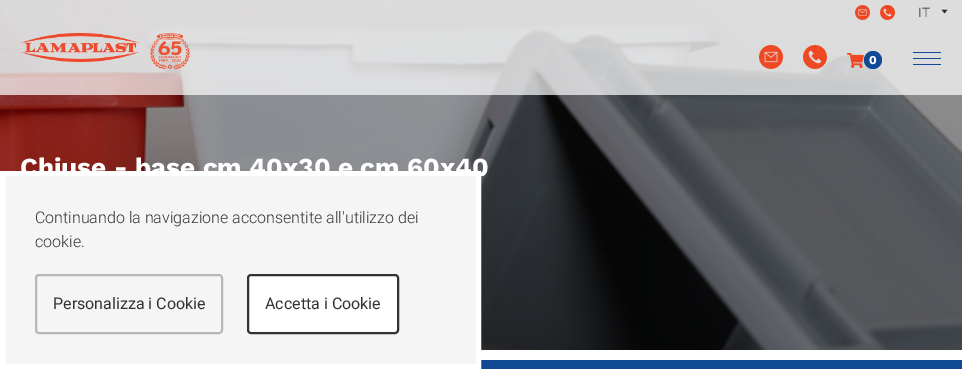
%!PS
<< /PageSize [962 369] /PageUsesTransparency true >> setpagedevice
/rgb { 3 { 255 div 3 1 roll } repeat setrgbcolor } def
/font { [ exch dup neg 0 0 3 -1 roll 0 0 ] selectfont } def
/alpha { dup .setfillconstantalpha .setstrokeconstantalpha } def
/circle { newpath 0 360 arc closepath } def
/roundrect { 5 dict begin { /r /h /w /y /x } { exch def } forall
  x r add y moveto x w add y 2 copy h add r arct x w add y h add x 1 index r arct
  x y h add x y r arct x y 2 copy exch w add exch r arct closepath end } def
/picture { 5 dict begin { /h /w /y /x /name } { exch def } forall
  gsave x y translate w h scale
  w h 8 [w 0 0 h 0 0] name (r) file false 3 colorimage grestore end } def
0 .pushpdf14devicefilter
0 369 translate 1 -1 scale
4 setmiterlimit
255 255 255 rgb
0 0 962 369 rectfill
(img/9.rgb) 0 0 962 350 picture
0.7 alpha
0 0 962 95 rectfill
1 alpha
(img/1.rgb) 855 5 15 15 picture
(img/2.rgb) 880 5 15 15 picture
(img/3.rgb) 941 9 7 5 picture
(img/4.rgb) 20 33 120 29 picture
(img/5.rgb) 150 33 40 36 picture
[
  [913 52 28 1 16 74 148]
  [913 58 28 1 16 74 148]
  [913 64 28 1 16 74 148]
] { aload pop rgb rectfill } forall
(img/6.rgb) 759 45 24 24 picture
(img/7.rgb) 803 45 24 24 picture
(img/8.rgb) 847 53 17 15 picture
873 60 9 circle fill
481 360 481 9 rectfill
/WorkSans-Light 14 font
26 26 26 rgb
918 17 moveto (IT) show
/WorkSans-Bold 12 font
255 255 255 rgb
869 64 moveto (0) show
/WorkSans-Bold 26 font
20 176 moveto (Chiuse - base cm 40x30 e cm 60x40) show
245 245 245 rgb
2.5 173.5 moveto 478.5 173.5 lineto 478.5 366.5 lineto 2.5 366.5 lineto closepath gsave fill grestore
255 255 255 rgb
5 setlinewidth
stroke
/Roboto-Light 16 font
51 51 51 rgb
35 223 moveto (Continuando la navigazione acconsentite all'utilizzo dei) show
35 247 moveto (cookie.) show
183 183 183 rgb
2 setlinewidth
36 275 186 58 3 roundrect stroke
/Roboto-Regular 16 font
51 51 51 rgb
53 309 moveto (Personalizza i Cookie) show
255 255 255 rgb
248 275 150 58 3 roundrect gsave fill grestore
51 51 51 rgb
stroke
265 309 moveto (Accetta i Cookie) show
.poppdf14devicefilter showpage
